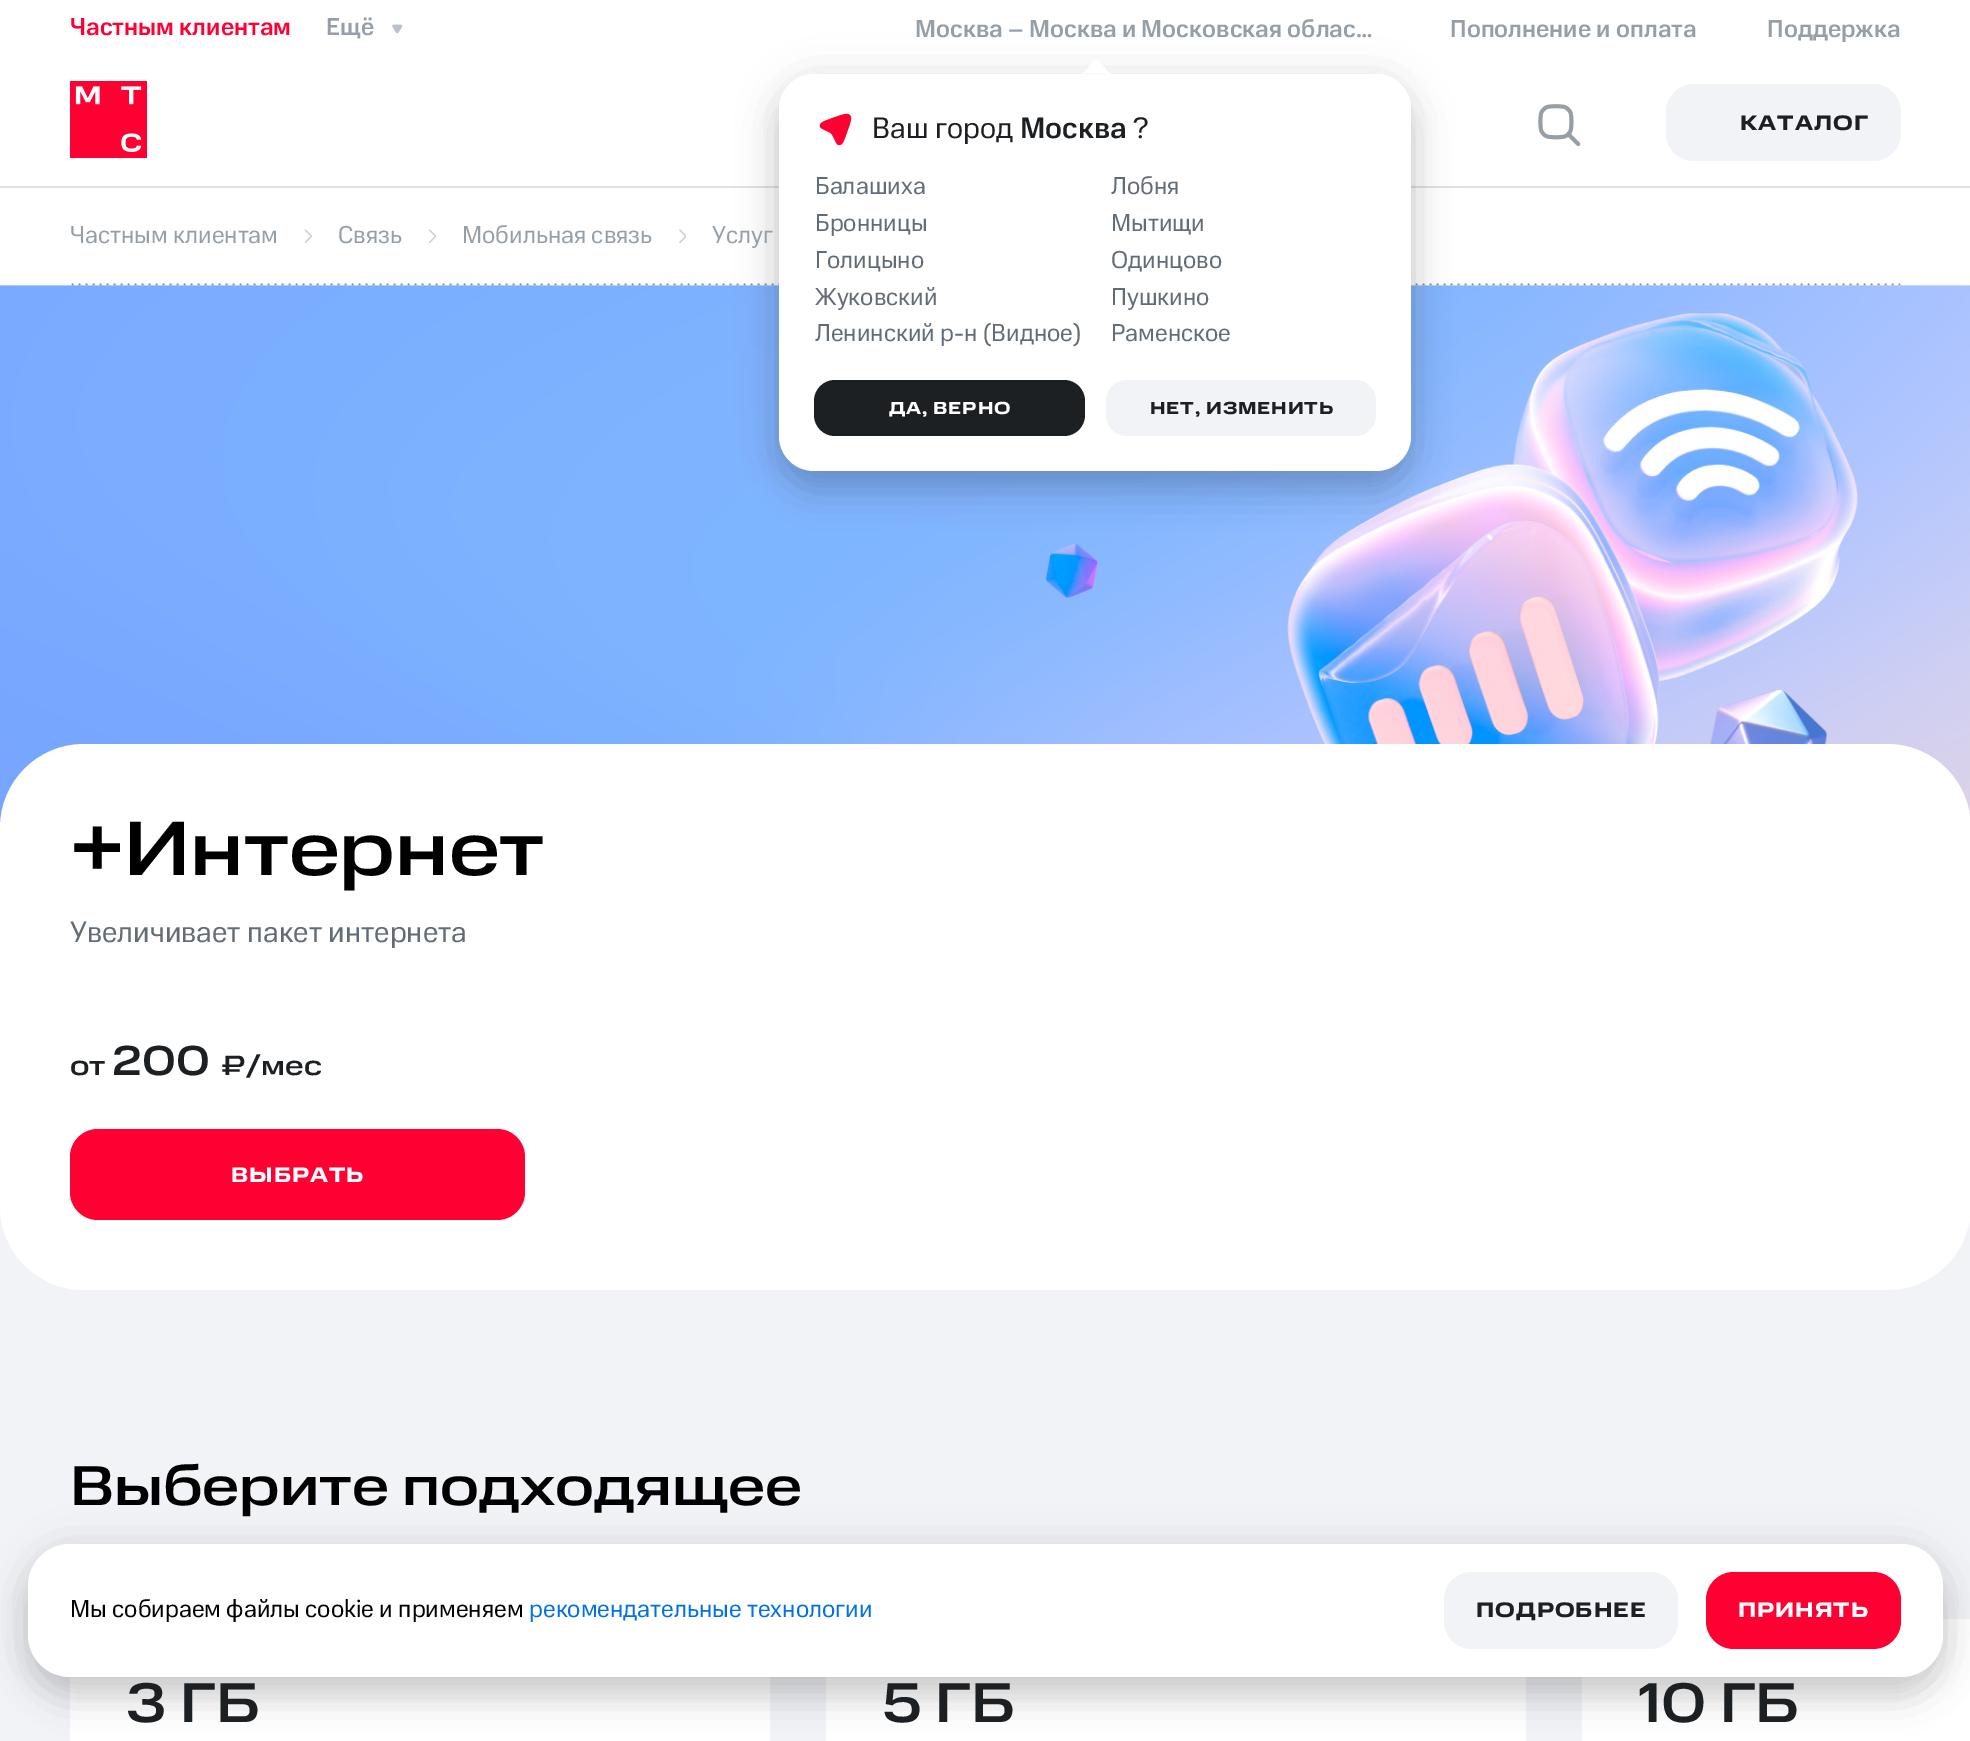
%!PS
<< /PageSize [1970 1741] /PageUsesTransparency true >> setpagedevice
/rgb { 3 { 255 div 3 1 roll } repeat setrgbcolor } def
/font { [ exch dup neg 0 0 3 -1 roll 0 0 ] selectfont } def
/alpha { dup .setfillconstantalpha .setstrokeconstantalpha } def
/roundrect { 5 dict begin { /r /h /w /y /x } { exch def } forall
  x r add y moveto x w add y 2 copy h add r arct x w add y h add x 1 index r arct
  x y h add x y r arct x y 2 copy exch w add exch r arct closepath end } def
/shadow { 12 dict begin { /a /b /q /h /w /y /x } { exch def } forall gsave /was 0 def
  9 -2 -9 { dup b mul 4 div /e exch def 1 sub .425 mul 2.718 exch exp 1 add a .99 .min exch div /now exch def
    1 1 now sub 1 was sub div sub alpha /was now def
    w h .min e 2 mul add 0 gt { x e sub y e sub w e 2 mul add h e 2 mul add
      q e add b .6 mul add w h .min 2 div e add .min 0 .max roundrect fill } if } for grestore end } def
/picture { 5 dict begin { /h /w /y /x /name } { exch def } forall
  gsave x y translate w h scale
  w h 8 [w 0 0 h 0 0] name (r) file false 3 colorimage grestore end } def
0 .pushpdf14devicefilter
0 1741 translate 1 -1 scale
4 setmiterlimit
255 255 255 rgb
0 0 1970 1741 rectfill
222 225 232 rgb
0 186 1970 2 rectfill
(img/1.rgb) 392 24 11 10 picture
242 243 247 rgb
0 285 1970 1456 rectfill
(img/9.rgb) 0 285 1970 543 picture
(img/8.rgb) 71 283 1830 3 picture
(img/10.rgb) 1045 313 813 431 picture
0 0 0 rgb
779 81 632 397 35 21 0.12 shadow
779 95 632 397 35 17.5 0.14 shadow
gsave
1043 60 105 14 rectclip
255 255 255 rgb
1096 59.5 moveto 1091.5 59.5 1087 73.5 1080.5 73.5 curveto 1112 73.5 lineto 1105.5 73.5 1101 59.5 1096 59.5 curveto closepath eofill
grestore
255 255 255 rgb
779 74 632 397 35 roundrect fill
(img/2.rgb) 819 113 33 33 picture
29 32 35 rgb
814 380 271 56 21 roundrect fill
242 243 247 rgb
1106 380 270 56 21 roundrect fill
(img/3.rgb) 70 81 77 77 picture
(img/4.rgb) 1538 104 43 43 picture
1666 84 235 77 28 roundrect fill
(img/5.rgb) 305 229 8 14 picture
(img/6.rgb) 429 229 7 14 picture
(img/7.rgb) 679 229 7 14 picture
255 255 255 rgb
0 744 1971 546 84 roundrect fill
255 0 50 rgb
70 1129 455 91 28 roundrect fill
[
  [70 1677 700 64 255 255 255]
  [826 1677 700 64 255 255 255]
  [1582 1619 388 122 255 255 255]
] { aload pop rgb rectfill } forall
0 0 0 rgb
28 1565 1915 133 42 17.5 0.14 shadow
28 1551 1915 133 42 21 0.12 shadow
255 255 255 rgb
28 1544 1915 133 42 roundrect fill
242 243 247 rgb
1444 1572 234 77 28 roundrect fill
255 0 50 rgb
1706 1572 195 77 28 roundrect fill
/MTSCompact-Medium 24.5 font
70 35 moveto (Частным клиентам) show
150 159 168 rgb
326 35 moveto (Ещё) show
915 37 moveto (Москва – Москва и Московская облас…) show
/MTSCompact-Regular 29.75 font
29 32 35 rgb
872 138 moveto (Ваш город) show
/MTSCompact-Medium 29.75 font
1020 138 moveto (Москва) show
/MTSCompact-Regular 29.75 font
1133 138 moveto (?) show
/MTSCompact-Regular 24.5 font
98 108 119 rgb
[
  [(Балашиха) 815 194]
  [(Лобня) 1111 194]
  [(Бронницы) 815 231]
  [(Мытищи) 1111 231]
  [(Голицыно) 815 268]
  [(Одинцово) 1111 268]
  [(Жуковский) 815 305]
  [(Пушкино) 1111 305]
  [(Ленинский р-н \(Видное\)) 815 341]
  [(Раменское) 1111 341]
] { aload pop moveto show } forall
/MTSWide-Bold 17.5 font
255 255 255 rgb
889 414 moveto 0.9 0 (ДА, ВЕРНО) ashow
29 32 35 rgb
1150 414 moveto 0.9 0 (НЕТ, ИЗМЕНИТЬ) ashow
/MTSCompact-Medium 24.5 font
150 159 168 rgb
1450 37 moveto (Пополнение и оплата) show
1767 37 moveto (Поддержка) show
/MTSWide-Bold 21 font
29 32 35 rgb
1740 130 moveto 1 0 (КАТАЛОГ) ashow
/MTSCompact-Regular 24.5 font
150 159 168 rgb
[
  [(Частным клиентам) 70 243]
  [(Связь) 338 243]
  [(Мобильная связь) 462 243]
  [(Услуг) 712 243]
] { aload pop moveto show } forall
/MTSWide-Medium 77 font
0 0 0 rgb
70 875 moveto (+Интернет) show
/MTSCompact-Regular 29.75 font
98 108 119 rgb
70 942 moveto (Увеличивает пакет интернета) show
/MTSWide-Medium 28 font
29 32 35 rgb
70 1075 moveto (от) show
/MTSWide-Medium 42 font
112 1075 moveto (200) show
/MTSWide-Medium 28 font
221 1075 moveto (₽/мес) show
/MTSWide-Bold 21 font
255 255 255 rgb
231 1182 moveto 1 0 (ВЫБРАТЬ) ashow
/MTSWide-Medium 56 font
0 0 0 rgb
70 1505 moveto (Выберите подходящее) show
29 32 35 rgb
[
  [(3 ГБ) 126 1722]
  [(5 ГБ) 882 1722]
  [(10 ГБ) 1638 1722]
] { aload pop moveto show } forall
/MTSCompact-Regular 24.5 font
0 0 0 rgb
70 1617 moveto (Мы собираем файлы cookie и применяем) show
0 112 229 rgb
529 1617 moveto (рекомендательные технологии) show
/MTSWide-Bold 21 font
29 32 35 rgb
1476 1617 moveto 1 0 (ПОДРОБНЕЕ) ashow
255 255 255 rgb
1738 1617 moveto 1 0 (ПРИНЯТЬ) ashow
.poppdf14devicefilter showpage
